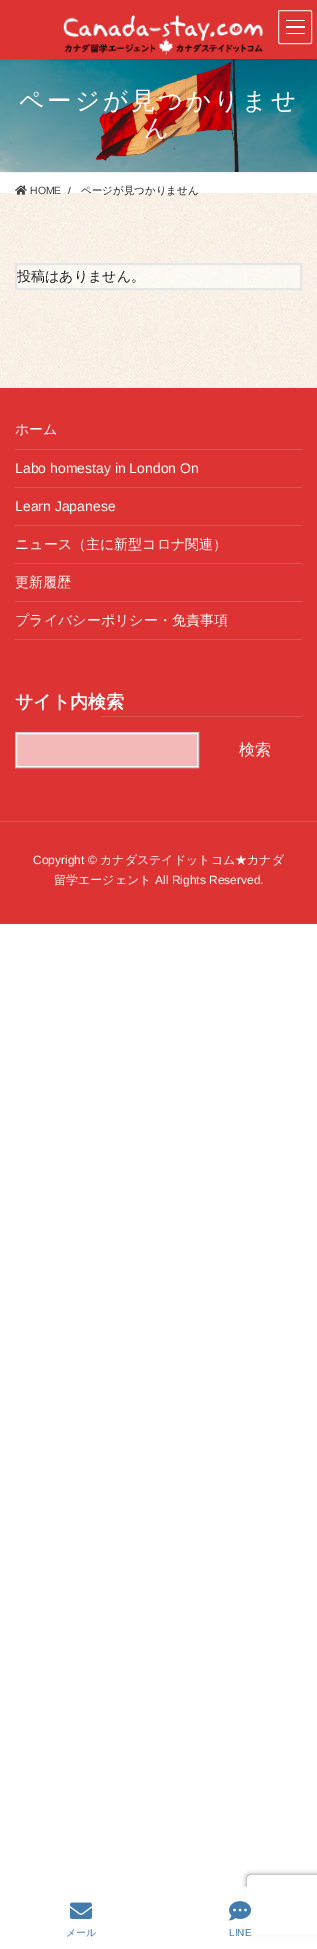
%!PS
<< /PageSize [317 1949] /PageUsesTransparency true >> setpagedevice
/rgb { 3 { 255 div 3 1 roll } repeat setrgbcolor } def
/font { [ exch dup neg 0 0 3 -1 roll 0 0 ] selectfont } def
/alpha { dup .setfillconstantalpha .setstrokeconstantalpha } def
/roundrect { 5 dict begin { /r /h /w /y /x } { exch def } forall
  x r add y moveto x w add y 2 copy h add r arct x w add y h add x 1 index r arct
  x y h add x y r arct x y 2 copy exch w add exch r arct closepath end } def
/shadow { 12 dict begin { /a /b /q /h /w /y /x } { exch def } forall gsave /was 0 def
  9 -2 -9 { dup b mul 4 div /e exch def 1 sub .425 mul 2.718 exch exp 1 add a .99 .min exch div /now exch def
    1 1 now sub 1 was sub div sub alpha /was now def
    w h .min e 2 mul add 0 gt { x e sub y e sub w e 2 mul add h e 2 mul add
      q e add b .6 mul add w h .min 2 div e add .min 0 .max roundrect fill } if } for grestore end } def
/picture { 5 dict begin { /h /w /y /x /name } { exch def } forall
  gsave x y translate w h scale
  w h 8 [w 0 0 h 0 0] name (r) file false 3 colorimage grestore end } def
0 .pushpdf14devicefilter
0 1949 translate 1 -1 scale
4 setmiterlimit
255 255 255 rgb
0 0 317 1949 rectfill
(img/2.rgb) 0 59 317 113 picture
0 0 0 rgb
0 1 317 59 0 1.5 0.1 shadow
221 51 51 rgb
0 0 317 59 rectfill
(img/1.rgb) 63 15 201 40 picture
[
  [286 20 19 1 255 255 255]
  [286 26 19 2 255 255 255]
  [286 33 19 1 255 255 255]
] { aload pop rgb rectfill } forall
248 214 214 rgb
278.5 10.5 33 33 1.5 roundrect stroke
242 242 242 rgb
0 172 317 1 rectfill
(img/4.rgb) 0 193 317 195 picture
(img/3.rgb) 15 185 12 10 picture
0.5 alpha
255 255 255 rgb
16 264 moveto 301 264 lineto 301 289 lineto 16 289 lineto closepath fill
1 alpha
229 229 229 rgb
2 setlinewidth
16 264 moveto 301 264 lineto 301 289 lineto 16 289 lineto closepath stroke
[
  [0 388 317 536 221 51 51]
  [15 449 287 1 226 82 82]
  [15 487 287 1 226 82 82]
  [15 525 287 1 226 82 82]
  [15 563 287 1 226 82 82]
  [15 601 287 1 226 82 82]
  [15 639 287 1 226 82 82]
  [101 716 201 1 226 82 82]
] { aload pop rgb rectfill } forall
243 184 184 rgb
16.5 733.5 moveto 197.5 733.5 lineto 197.5 766.5 lineto 16.5 766.5 lineto closepath gsave fill grestore
255 255 255 rgb
1 setlinewidth
stroke
204 204 204 rgb
15.5 732.5 183 35 rectstroke
226 82 82 rgb
0 821 317 1 rectfill
gsave
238 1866 moveto 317 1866 lineto 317 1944 lineto 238 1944 lineto closepath 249 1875 moveto 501 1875 lineto 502 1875 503 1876 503 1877 curveto 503 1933 lineto 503 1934 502 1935 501 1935 curveto 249 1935 lineto 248 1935 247 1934 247 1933 curveto 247 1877 lineto 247 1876 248 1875 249 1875 curveto closepath eoclip newpath
128 128 128 rgb
247 1875 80 60 2 2.5 1 shadow
grestore
0.9 alpha
255 255 255 rgb
242 1887 75 53 rectfill
1 alpha
(img/5.rgb) 70 1902 22 17 picture
(img/6.rgb) 229 1901 22 20 picture
/WenQuanYiZenHei-Medium 24.5 font
19 109 moveto 3 0 (ページが見つかりませ) ashow
144 136 moveto 3 0 (ん) ashow
/LiberationSans-Regular 10.5 font
69 69 69 rgb
30 194 moveto (HOME) show
/LiberationSans-Regular 10 font
34 34 34 rgb
68 194 moveto (/) show
/WenQuanYiZenHei-Medium 10.5 font
81 194 moveto (ページが見つかりません) show
/WenQuanYiZenHei-Medium 14 font
17 281 moveto (投稿はありません。) show
255 255 255 rgb
15 434 moveto (ホーム) show
/LiberationSans-Regular 14 font
15 473 moveto (Labo homestay in London On) show
15 511 moveto (Learn Japanese) show
/WenQuanYiZenHei-Medium 14 font
[
  [(ニュース（主に新型コロナ関連）) 15 549]
  [(更新履歴) 15 587]
  [(プライバシーポリシー・免責事項) 15 625]
] { aload pop moveto show } forall
/WenQuanYiZenHei-Bold 18 font
15 708 moveto (サイト内検索) show
/WenQuanYiZenHei-Medium 16 font
239 755 moveto (検索) show
/LiberationSans-Regular 12 font
33 864 moveto (Copyright ©) show
/WenQuanYiZenHei-Medium 12 font
100 864 moveto (カナダステイドットコム★カナダ) show
54 884 moveto (留学エージェント) show
/LiberationSans-Regular 12 font
155 884 moveto (All Rights Reserved.) show
/WenQuanYiZenHei-Medium 10 font
67 124 173 rgb
66 1936 moveto (メール) show
/LiberationSans-Regular 10 font
229 1936 moveto (LINE) show
.poppdf14devicefilter showpage
